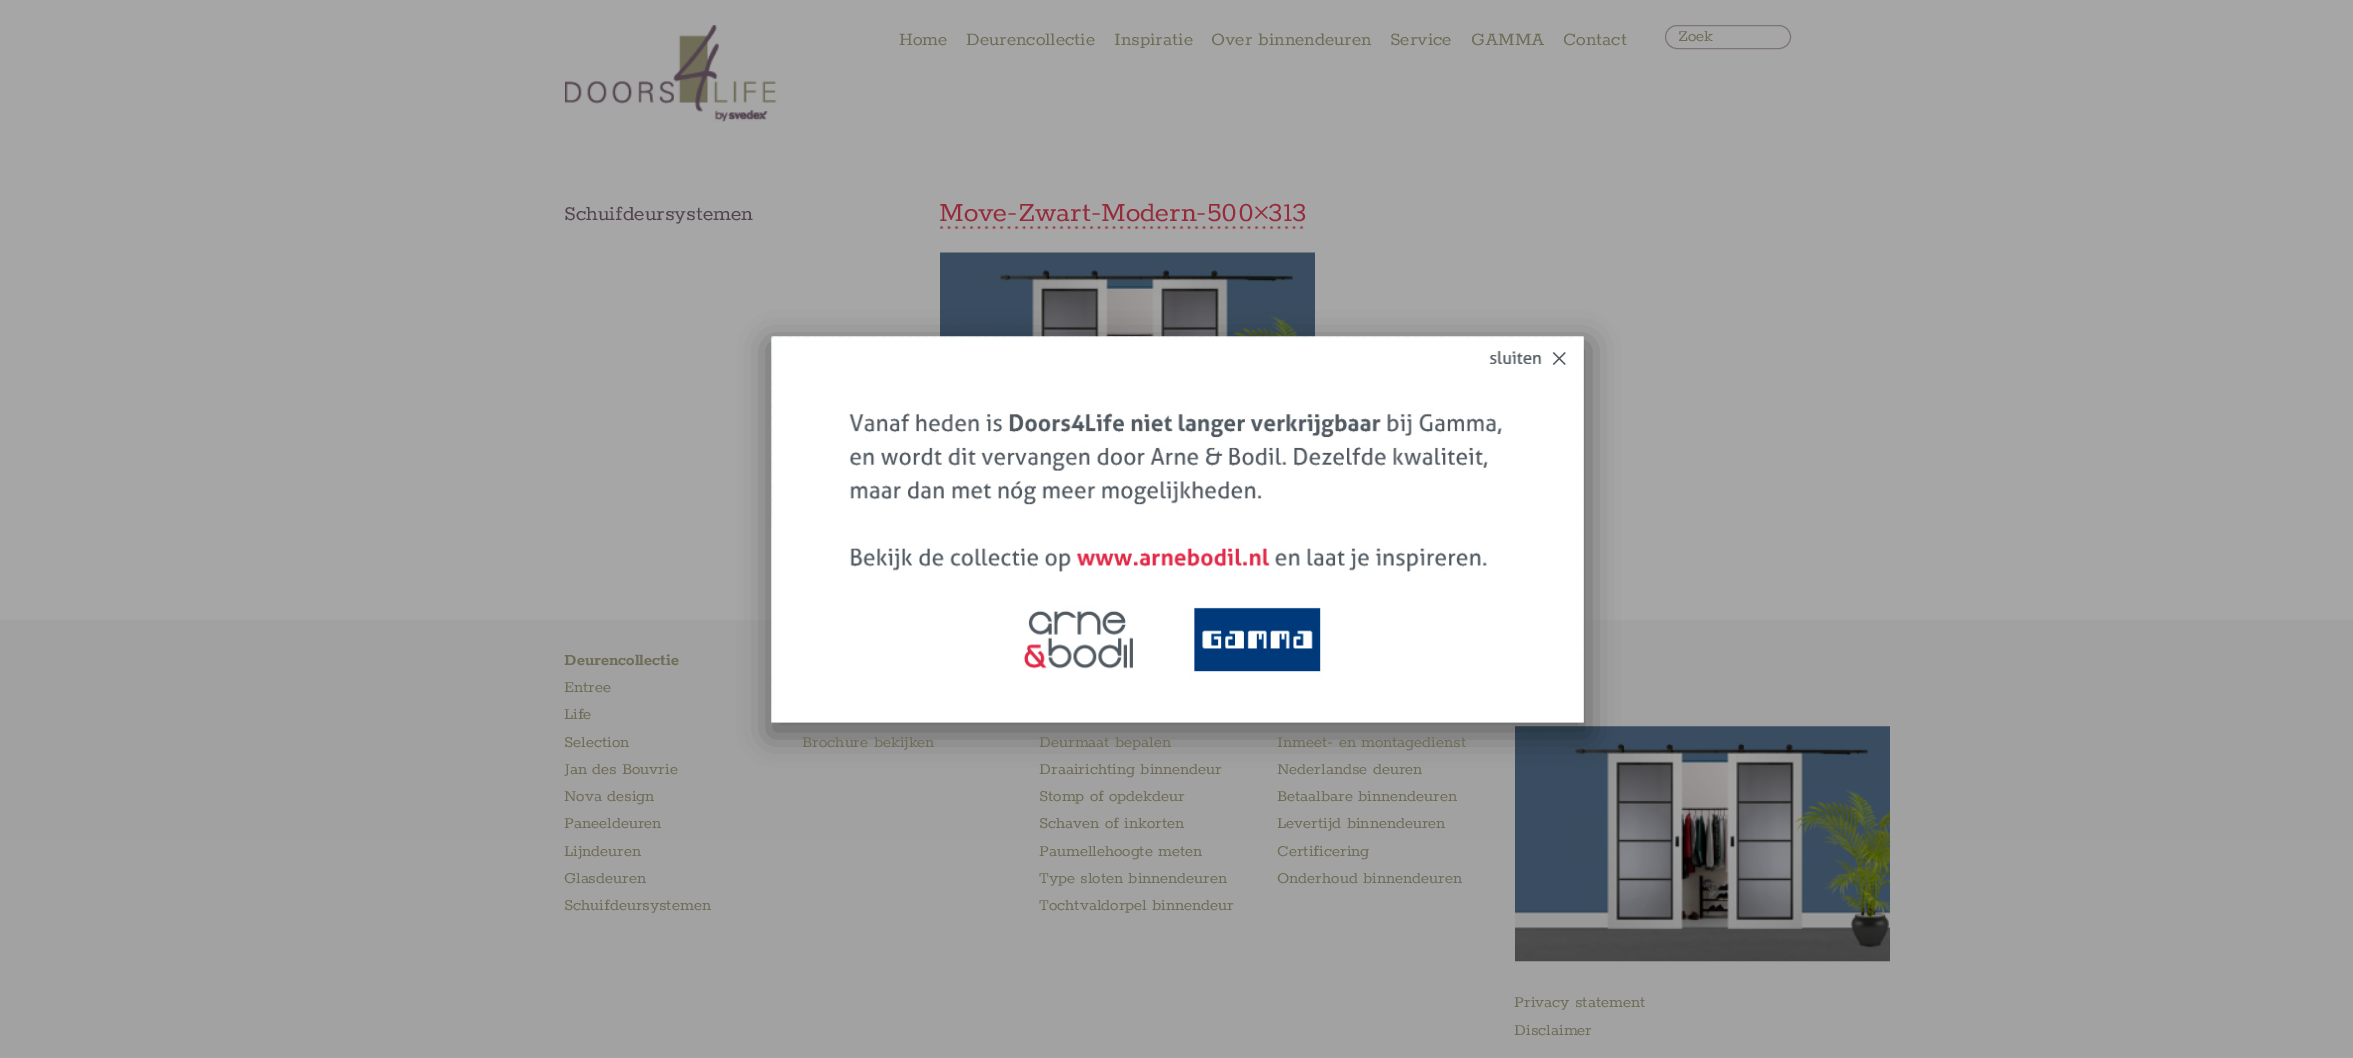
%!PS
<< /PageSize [2353 1058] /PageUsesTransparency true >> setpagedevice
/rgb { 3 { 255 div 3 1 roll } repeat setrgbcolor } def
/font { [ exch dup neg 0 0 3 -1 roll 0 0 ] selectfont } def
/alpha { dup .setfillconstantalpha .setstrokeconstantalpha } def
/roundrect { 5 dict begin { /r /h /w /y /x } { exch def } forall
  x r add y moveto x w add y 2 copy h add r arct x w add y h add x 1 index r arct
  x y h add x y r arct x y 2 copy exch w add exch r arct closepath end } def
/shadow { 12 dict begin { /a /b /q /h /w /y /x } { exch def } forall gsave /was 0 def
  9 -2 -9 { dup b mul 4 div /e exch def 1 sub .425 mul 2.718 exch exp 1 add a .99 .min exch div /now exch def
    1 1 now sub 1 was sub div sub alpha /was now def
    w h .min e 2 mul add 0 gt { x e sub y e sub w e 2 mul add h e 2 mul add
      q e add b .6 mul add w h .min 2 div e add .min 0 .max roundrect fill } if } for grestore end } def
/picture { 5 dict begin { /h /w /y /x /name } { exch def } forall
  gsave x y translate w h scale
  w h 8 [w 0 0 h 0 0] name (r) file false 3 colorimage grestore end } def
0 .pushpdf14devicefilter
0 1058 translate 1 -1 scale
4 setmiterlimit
166 166 166 rgb
0 0 2353 1058 rectfill
(img/1.rgb) 565 25 212 97 picture
124 116 122 rgb
1665.5 25.5 125 23 11.5 roundrect stroke
(img/2.rgb) 940 226 364 3 picture
(img/3.rgb) 940 252 375 85 picture
gsave 0 620 moveto 2353 620 lineto 2353 1058 lineto 0 1058 lineto closepath clip newpath
<< /ShadingType 2 /ColorSpace /DeviceRGB /Coords [1177 620 1177 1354] /Extend [true true] /Function << /FunctionType 2 /Domain [0 1] /C0 [0.631 0.631 0.631] /C1 [0.647 0.647 0.647] /N 1 >> >> shfill grestore
(img/4.rgb) 1515 726 375 236 picture
0 0 0 rgb
769 343 820 393 0 14.5 0.35 shadow
(img/5.rgb) 771 336 813 387 picture
/Rokkitt-Regular 20 font
111 109 87 rgb
[
  [(Home) 899 45]
  [(Deurencollectie) 966 45]
  [(Inspiratie) 1114 45]
  [(Over binnendeuren) 1211 45]
  [(Service) 1390 45]
  [(GAMMA) 1471 45]
  [(Contact) 1563 45]
] { aload pop moveto show } forall
/Rokkitt-Regular 17.5 font
1678 41 moveto (Zoek) show
/Rokkitt-Regular 22.5 font
82 67 79 rgb
564 220 moveto (Schuifdeursystemen) show
/Rokkitt-Regular 30 font
150 44 59 rgb
939 221 moveto (Move-Zwart-Modern-500×313) show
/Rokkitt-Bold 17.5 font
111 109 87 rgb
564 665 moveto (Deurencollectie) show
/Rokkitt-Regular 17.5 font
[
  [(Entree) 564 692]
  [(Life) 564 719]
  [(Selection) 564 747]
  [(Jan des Bouvrie) 564 774]
  [(Nova design) 564 801]
  [(Paneeldeuren) 564 828]
  [(Lijndeuren) 564 856]
  [(Glasdeuren) 564 883]
  [(Schuifdeursystemen) 564 910]
  [(Brochure bekijken) 802 747]
  [(Deurmaat bepalen) 1039 747]
  [(Draairichting binnendeur) 1039 774]
  [(Stomp of opdekdeur) 1039 801]
  [(Schaven of inkorten) 1039 828]
  [(Paumellehoogte meten) 1039 856]
  [(Type sloten binnendeuren) 1039 883]
  [(Tochtvaldorpel binnendeur) 1039 910]
  [(Inmeet- en montagedienst) 1277 747]
  [(Nederlandse deuren) 1277 774]
  [(Betaalbare binnendeuren) 1277 801]
  [(Levertijd binnendeuren) 1277 828]
  [(Certificering) 1277 856]
  [(Onderhoud binnendeuren) 1277 883]
  [(Privacy statement) 1514 1007]
  [(Disclaimer) 1514 1035]
] { aload pop moveto show } forall
.poppdf14devicefilter showpage
